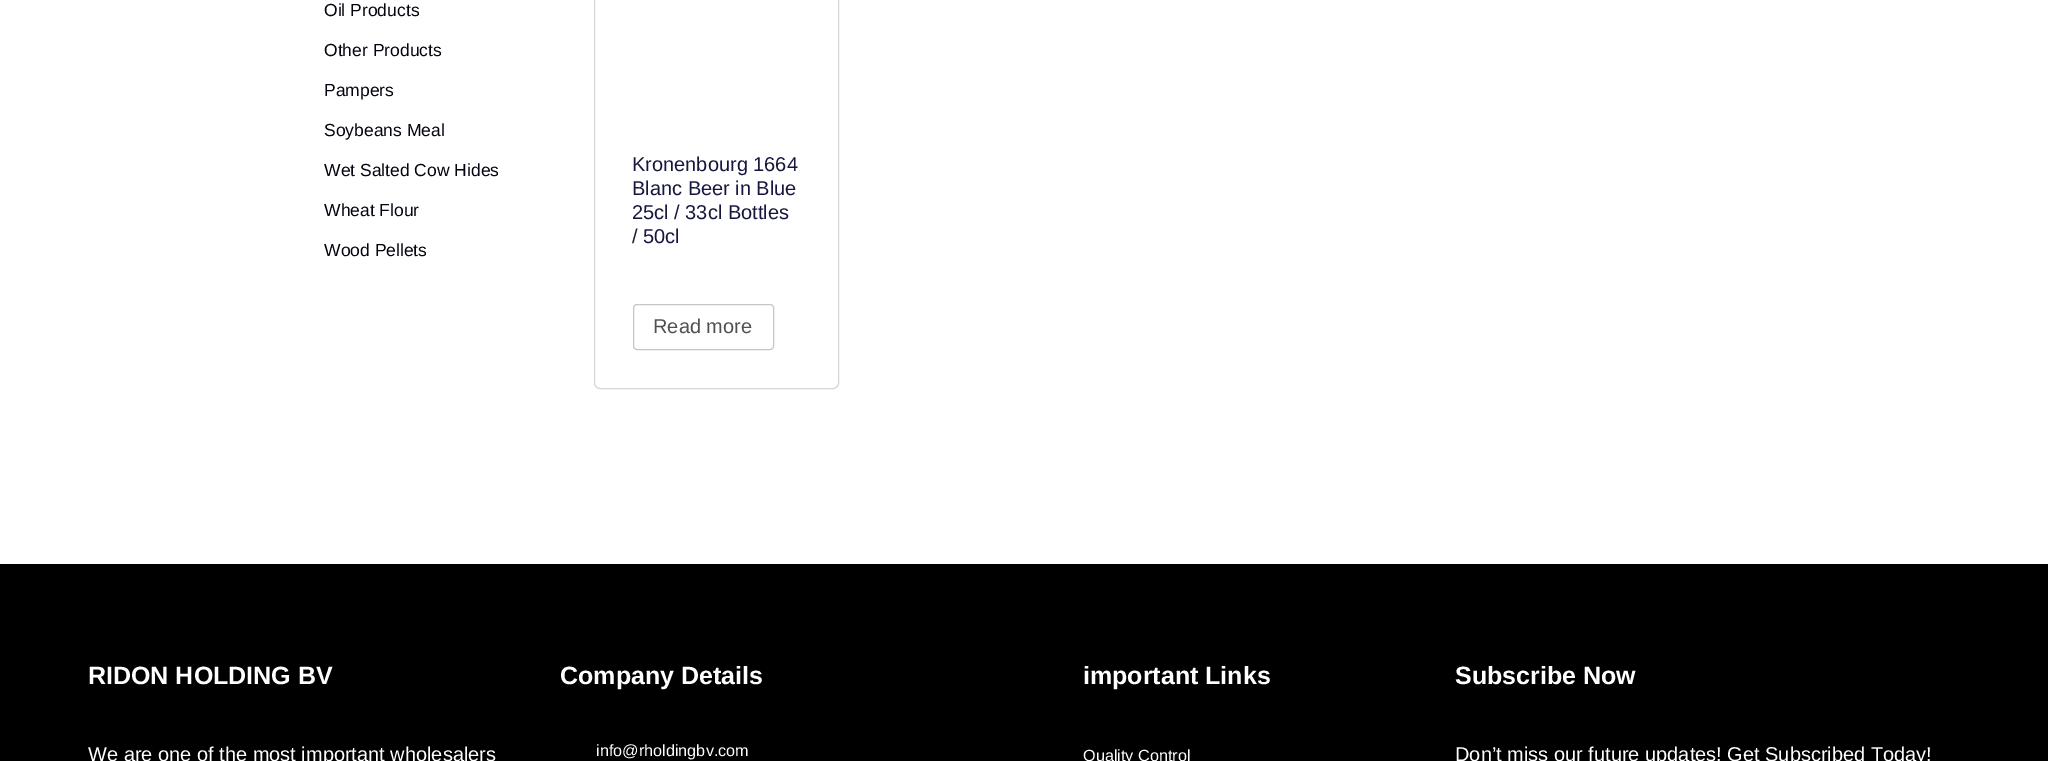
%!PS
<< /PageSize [2048 761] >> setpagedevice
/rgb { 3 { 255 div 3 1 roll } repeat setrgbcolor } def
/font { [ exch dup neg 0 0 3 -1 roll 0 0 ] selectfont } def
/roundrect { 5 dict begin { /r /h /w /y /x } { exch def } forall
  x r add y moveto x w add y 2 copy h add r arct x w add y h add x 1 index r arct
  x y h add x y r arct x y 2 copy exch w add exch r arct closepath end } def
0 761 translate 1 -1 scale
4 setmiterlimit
255 255 255 rgb
0 0 2048 761 rectfill
214 214 214 rgb
594.5 -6.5 244 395 5.5 roundrect stroke
198 198 198 rgb
633.5 304.5 140 45 3.5 roundrect stroke
0 0 0 rgb
0 564 2048 197 rectfill
/LiberationSans-Regular 17.5 font
4 3 15 rgb
[
  [(Oil Products) 324 16]
  [(Other Products) 324 56]
  [(Pampers) 324 96]
  [(Soybeans Meal) 324 136]
  [(Wet Salted Cow Hides) 324 176]
  [(Wheat Flour) 324 216]
  [(Wood Pellets) 324 256]
] { aload pop moveto show } forall
/LiberationSans-Regular 20 font
22 22 63 rgb
[
  [(Kronenbourg 1664) 632 171]
  [(Blanc Beer in Blue) 632 195]
  [(25cl / 33cl Bottles) 632 219]
  [(/ 50cl) 632 243]
] { aload pop moveto show } forall
81 81 81 rgb
653 333 moveto (Read more) show
/LiberationSans-Bold 25 font
255 255 255 rgb
88 684 moveto (RIDON HOLDING BV) show
/LiberationSans-Regular 20 font
88 761 moveto (We are one of the most important wholesalers) show
/LiberationSans-Bold 25 font
560 684 moveto (Company Details) show
/LiberationSans-Regular 16.25 font
596 756 moveto (info@rholdingbv.com) show
/LiberationSans-Bold 25 font
1083 684 moveto (important Links) show
/LiberationSans-Regular 16.25 font
1083 761 moveto (Quality Control) show
/LiberationSans-Bold 25 font
1455 684 moveto (Subscribe Now) show
/LiberationSans-Regular 20 font
1455 761 moveto (Don’t miss our future updates! Get Subscribed Today!) show
showpage
